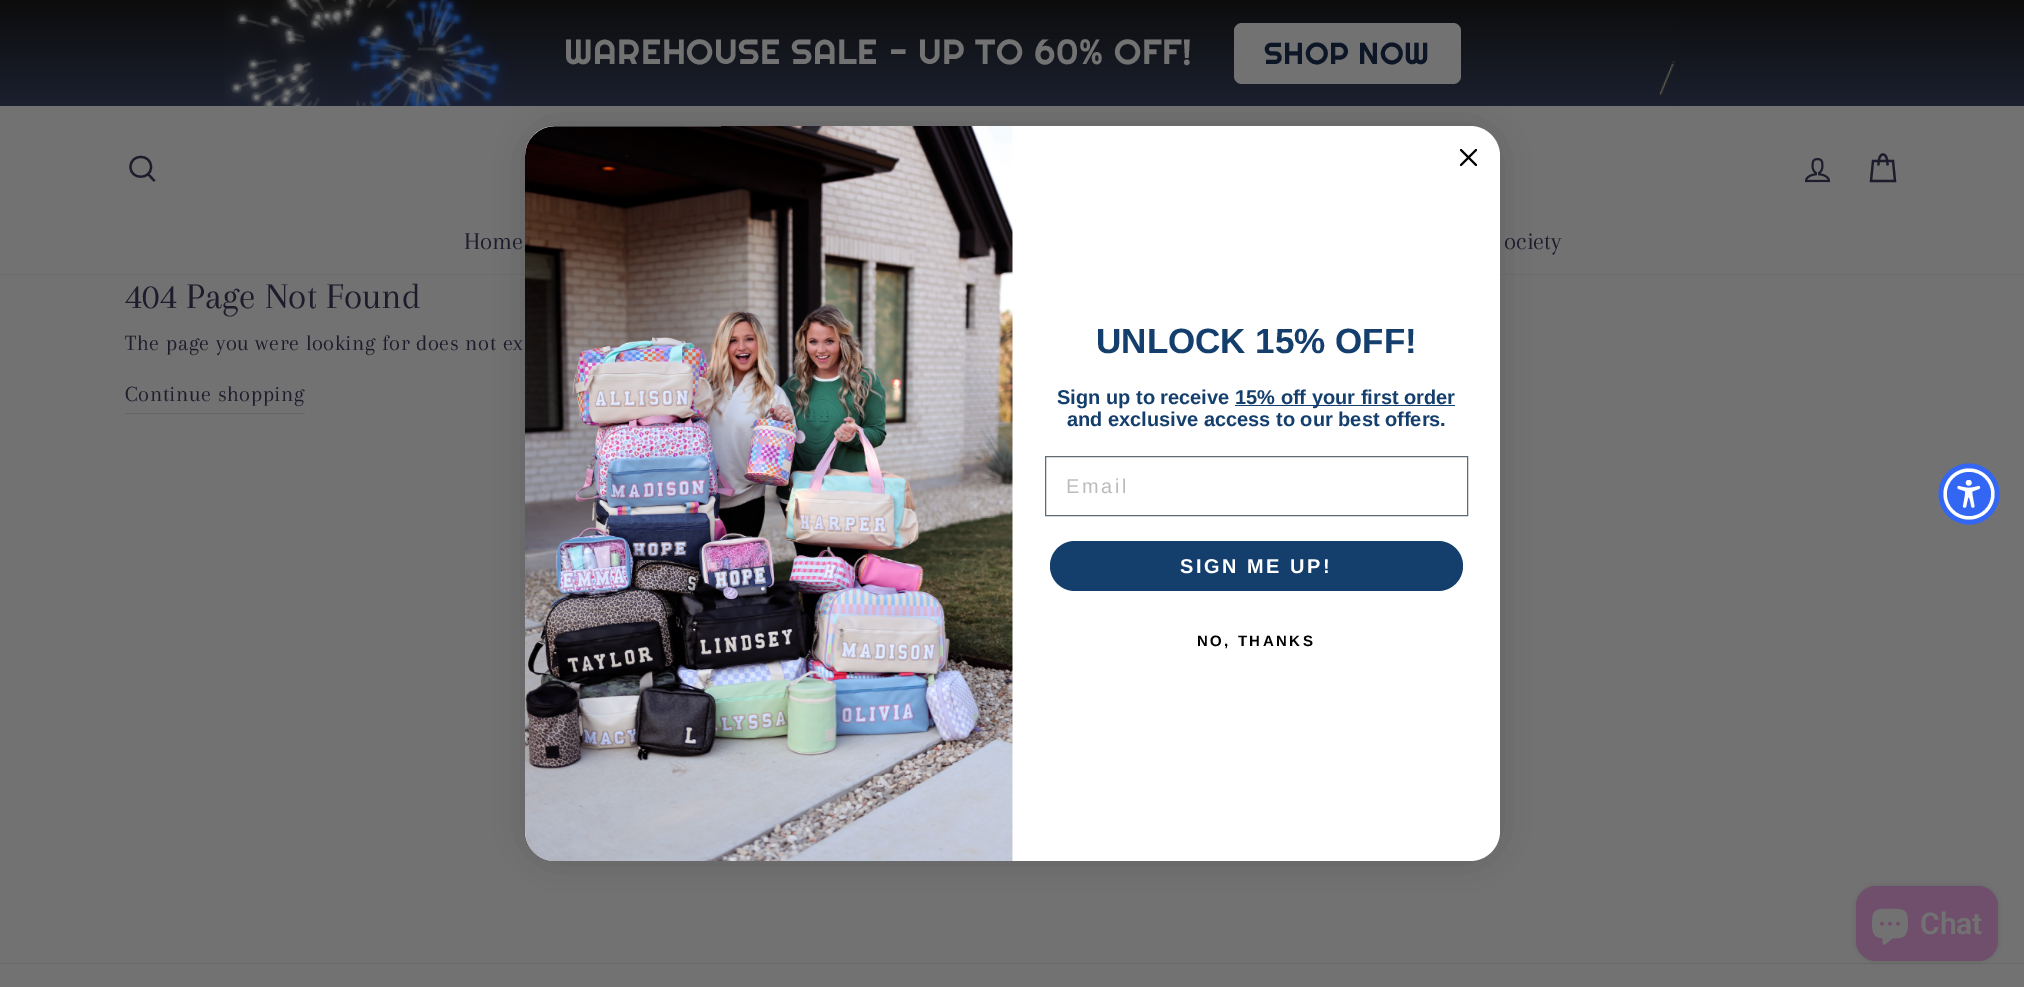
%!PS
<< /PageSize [2024 987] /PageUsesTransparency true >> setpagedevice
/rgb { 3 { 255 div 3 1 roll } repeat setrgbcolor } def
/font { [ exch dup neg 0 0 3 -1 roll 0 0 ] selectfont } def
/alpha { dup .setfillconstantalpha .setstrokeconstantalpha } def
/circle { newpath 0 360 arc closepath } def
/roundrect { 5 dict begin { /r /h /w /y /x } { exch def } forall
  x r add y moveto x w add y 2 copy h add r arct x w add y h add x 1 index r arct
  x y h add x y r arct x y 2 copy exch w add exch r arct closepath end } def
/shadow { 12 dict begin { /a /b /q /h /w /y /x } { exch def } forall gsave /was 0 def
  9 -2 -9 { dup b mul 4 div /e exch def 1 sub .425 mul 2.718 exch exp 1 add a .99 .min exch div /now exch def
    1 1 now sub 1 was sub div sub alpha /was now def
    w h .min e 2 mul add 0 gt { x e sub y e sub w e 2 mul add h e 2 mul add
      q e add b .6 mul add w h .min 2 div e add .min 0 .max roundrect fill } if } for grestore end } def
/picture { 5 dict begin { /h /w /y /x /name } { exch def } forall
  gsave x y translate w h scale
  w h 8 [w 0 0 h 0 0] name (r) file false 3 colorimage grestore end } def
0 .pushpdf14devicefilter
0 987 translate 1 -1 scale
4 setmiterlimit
114 114 114 rgb
0 0 2024 987 rectfill
12 12 12 rgb
0 105 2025 169 0 0.5 0.2 shadow
gsave 0 0 moveto 2024 0 lineto 2024 106 lineto 0 106 lineto closepath clip newpath
<< /ShadingType 2 /ColorSpace /DeviceRGB /Coords [1013 0 1013 106] /Extend [true true] /Function << /FunctionType 2 /Domain [0 1] /C0 [0.047 0.047 0.047] /C1 [0.106 0.125 0.184] /N 1 >> >> shfill grestore
(img/1.rgb) 224 0 1452 106 picture
114 114 114 rgb
1234 23 227 61 8 roundrect fill
0 106 2024 168 rectfill
28 28 44 rgb
2.2 setlinewidth
151 167 moveto 151 180 130.5 180 130.5 167 curveto 130.5 153.5 151 153.5 151 167 curveto closepath 154.5 181 moveto 148 174 lineto stroke
(img/2.rgb) 1804 158 27 25 picture
1878.5 165.5 moveto 1878.5 157 1880.5 154.5 1883 154.5 curveto 1885.5 154.5 1887.5 157 1887.5 165.5 curveto 1873 161 moveto 1893 161 lineto 1895 181 lineto 1871 181 lineto closepath stroke
101 101 104 rgb
125 413 180 1 rectfill
105 105 102 rgb
0 963 2024 1 rectfill
0 0 0 rgb
525 126 975 735 30 19 0.15 shadow
255 255 255 rgb
525 126 975 735 30 roundrect fill
0 0 0 rgb
1.9 setlinewidth
1 setlinecap
1 setlinejoin
1461 150 moveto 1476 165 lineto 1461 165 moveto 1476 150 lineto closepath stroke
(img/3.rgb) 525 126 488 735 picture
20 63 108 rgb
1235 405 220 1 rectfill
96 106 114 rgb
1 setlinewidth
0 setlinecap
0 setlinejoin
1045.5 456.5 422 59 rectstroke
20 63 108 rgb
1050 541 413 50 25 roundrect fill
51 102 243 rgb
1969 494 30.5 circle fill
255 255 255 rgb
1969 494 25.5 circle fill
51 102 243 rgb
1969 494 22 circle fill
(img/4.rgb) 1957 480 24 28 picture
12 12 12 rgb
1856 886 142 75 20 3 0.15 shadow
111 79 108 rgb
1856 886 142 75 20 roundrect fill
(img/5.rgb) 1872 908 36 37 picture
/Righteous-Regular 35 font
114 114 114 rgb
564 64 moveto 0.55 0 (WAREHOUSE SALE - UP TO 60% OFF!) ashow
/Righteous-Regular 30.5 font
12 22 38 rgb
1264 64 moveto 0.55 0 (SHOP NOW) ashow
/Arapey-Regular 25 font
28 28 44 rgb
464 249 moveto (Home) show
1504 249 moveto (ociety) show
/Arapey-Regular 37.5 font
125 308 moveto (404 Page Not Found) show
/Arapey-Regular 22.5 font
125 350 moveto 0.55 0 (The page you were looking for does not ex) ashow
125 401 moveto 0.55 0 (Continue shopping) ashow
/LiberationSans-Bold 35 font
20 63 108 rgb
1096 353 moveto (UNLOCK 15% OFF!) show
/LiberationSans-Bold 20 font
[
  [(Sign up to receive) 1057 404]
  [(15% off your first order) 1235 404]
  [(and exclusive access to our best offers.) 1067 426]
] { aload pop moveto show } forall
/LiberationSans-Regular 20 font
187 187 187 rgb
1066 493 moveto 2.5 0 (Email) ashow
/LiberationSans-Bold 20 font
255 255 255 rgb
1180 573 moveto 2.5 0 (SIGN ME UP!) ashow
/LiberationSans-Bold 15 font
0 0 0 rgb
1197 646 moveto 2.5 0 (NO, THANKS) ashow
/Roboto-SemiBold 30 font
114 114 114 rgb
1920 934 moveto (Chat) show
.poppdf14devicefilter showpage
